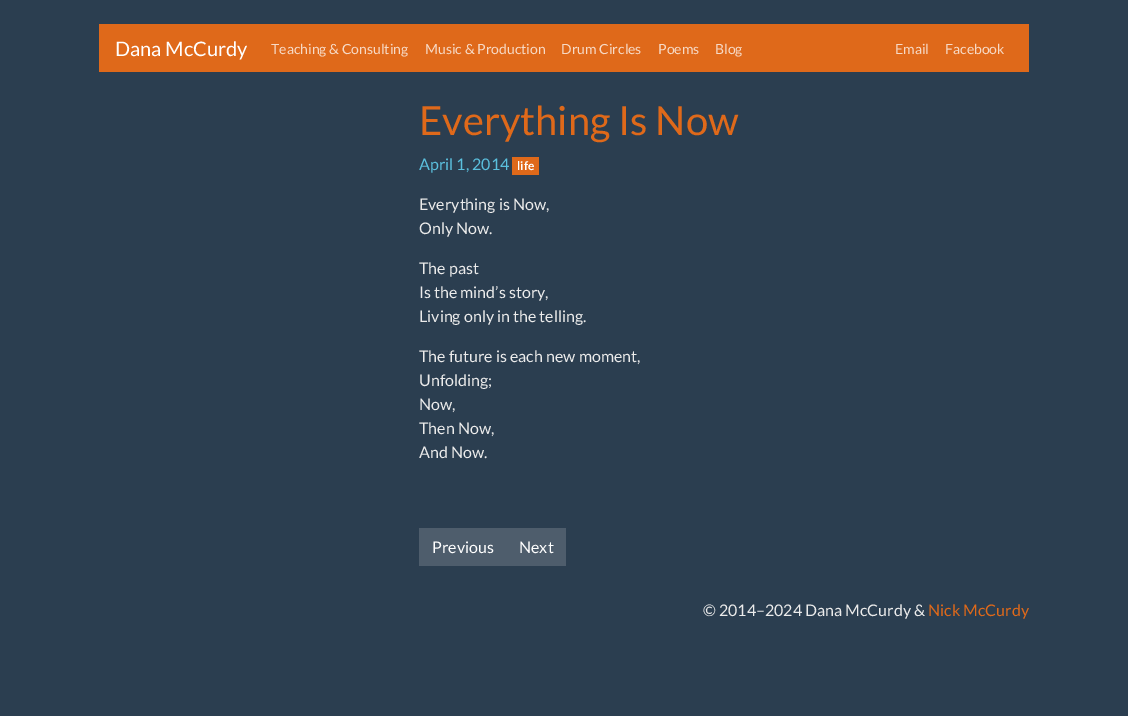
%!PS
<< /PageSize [1128 716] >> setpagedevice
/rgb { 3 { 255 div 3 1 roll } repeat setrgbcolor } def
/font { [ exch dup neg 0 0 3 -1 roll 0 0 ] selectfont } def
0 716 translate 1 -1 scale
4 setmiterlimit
43 62 80 rgb
0 0 1128 716 rectfill
[
  [99 24 930 48 223 105 26]
  [512 157 27 18 223 105 26]
  [419 528 147 38 78 93 108]
] { aload pop rgb rectfill } forall
/Lato-Regular 20 font
255 255 255 rgb
115 56 moveto (Dana McCurdy) show
/Lato-Regular 14 font
247 218 198 rgb
[
  [(Teaching & Consulting) 271 54]
  [(Music & Production) 425 54]
  [(Drum Circles) 561 54]
  [(Poems) 658 54]
  [(Blog) 715 54]
  [(Email) 895 54]
  [(Facebook) 945 54]
] { aload pop moveto show } forall
/Lato-Regular 40 font
223 105 26 rgb
419 135 moveto (Everything Is Now) show
/Lato-Regular 16 font
91 192 222 rgb
419 170 moveto (April 1, 2014) show
/Lato-Bold 12 font
255 255 255 rgb
517 170 moveto (life) show
/Lato-Regular 16 font
235 235 235 rgb
[
  [(Everything is Now,) 419 210]
  [(Only Now.) 419 234]
  [(The past) 419 274]
  [(Is the mind’s story,) 419 298]
  [(Living only in the telling.) 419 322]
  [(The future is each new moment,) 419 362]
  [(Unfolding;) 419 386]
  [(Now,) 419 410]
  [(Then Now,) 419 434]
  [(And Now.) 419 458]
] { aload pop moveto show } forall
255 255 255 rgb
432 553 moveto (Previous) show
519 553 moveto (Next) show
235 235 235 rgb
703 616 moveto (© 2014–2024 Dana McCurdy &) show
223 105 26 rgb
928 616 moveto (Nick McCurdy) show
showpage
